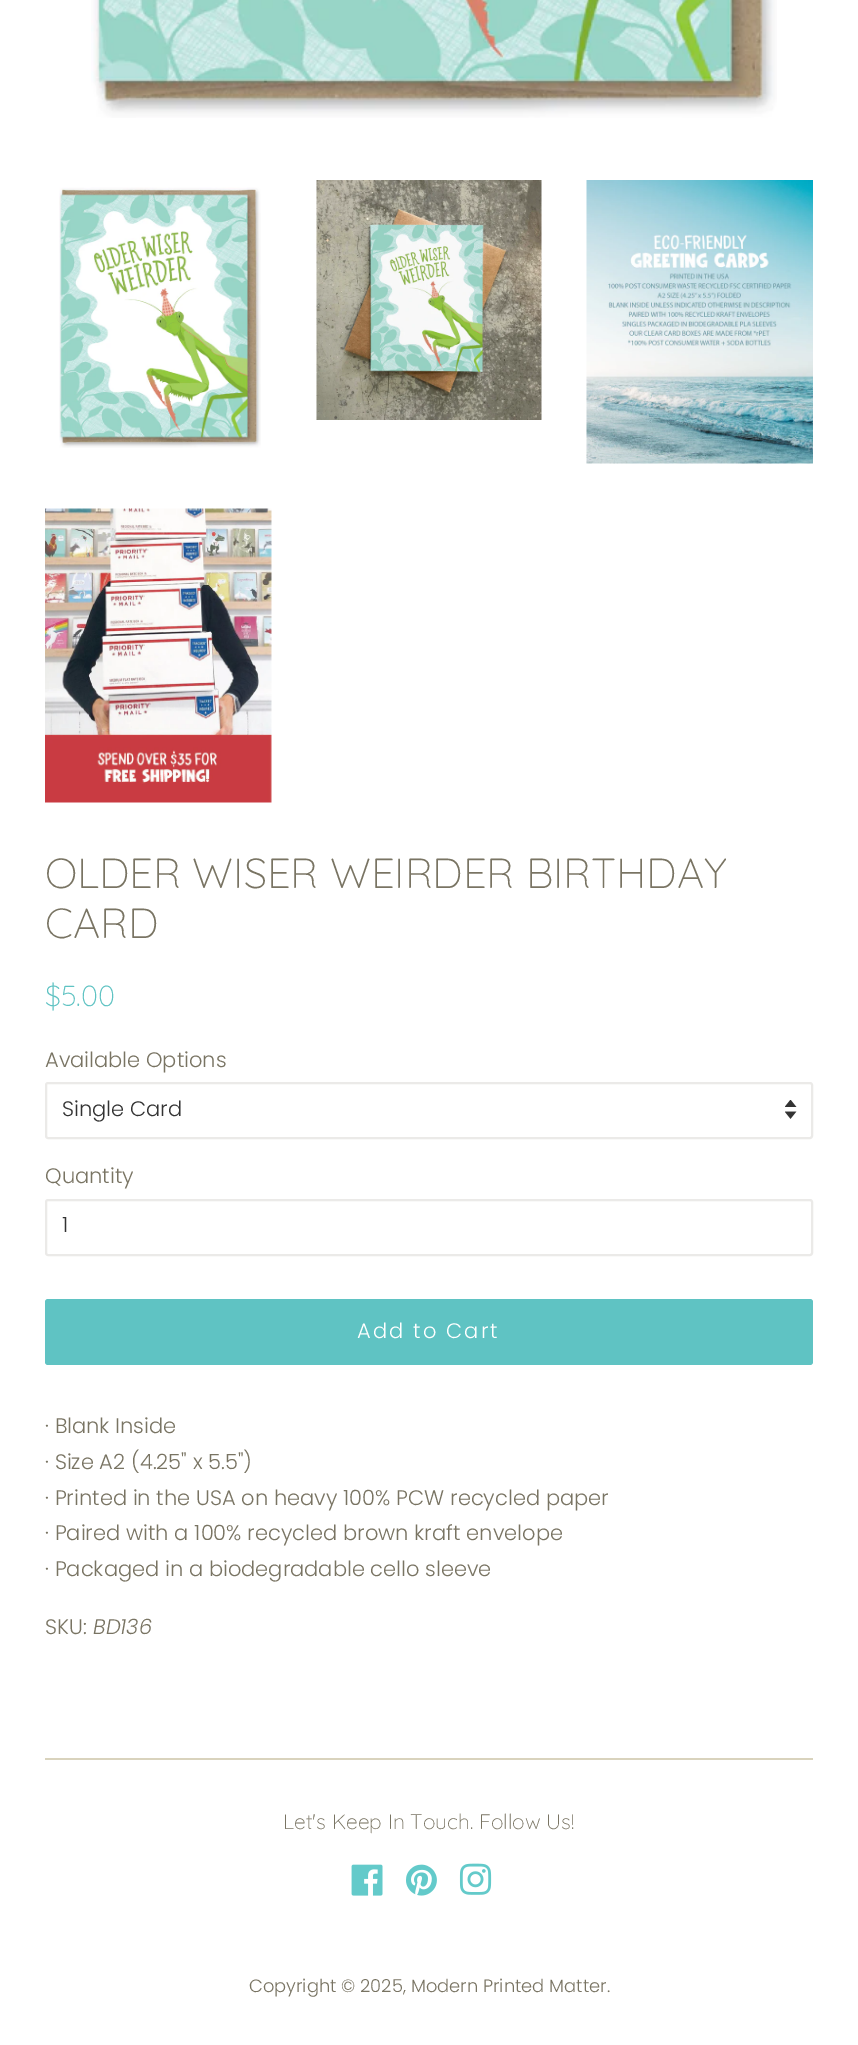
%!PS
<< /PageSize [858 2045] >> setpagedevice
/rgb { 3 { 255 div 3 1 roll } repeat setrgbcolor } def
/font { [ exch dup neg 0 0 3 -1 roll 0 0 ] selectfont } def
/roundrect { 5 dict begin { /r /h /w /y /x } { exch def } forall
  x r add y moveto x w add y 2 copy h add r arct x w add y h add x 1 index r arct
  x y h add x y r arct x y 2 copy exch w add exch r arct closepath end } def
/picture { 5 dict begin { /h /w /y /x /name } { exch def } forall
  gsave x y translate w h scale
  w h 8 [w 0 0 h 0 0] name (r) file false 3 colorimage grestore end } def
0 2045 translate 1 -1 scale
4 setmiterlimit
255 255 255 rgb
0 0 858 2045 rectfill
(img/1.rgb) 91 0 686 118 picture
(img/2.rgb) 59 187 202 261 picture
(img/3.rgb) 316 180 226 240 picture
(img/4.rgb) 586 180 227 284 picture
(img/5.rgb) 45 508 227 295 picture
(img/6.rgb) 785 1100 12 19 picture
235 234 232 rgb
2 setlinewidth
46 1083 766 55 2 roundrect stroke
46 1200 766 55 2 roundrect stroke
95 195 195 rgb
45 1299 768 66 3 roundrect fill
217 211 189 rgb
45 1758 768 2 rectfill
(img/7.rgb) 351 1864 32 32 picture
(img/8.rgb) 406 1864 31 32 picture
(img/9.rgb) 459 1863 33 32 picture
/Quicksand-Light 42 font
121 116 99 rgb
45 888 moveto (OLDER WISER WEIRDER BIRTHDAY) show
45 938 moveto (CARD) show
/Quicksand-Light 29 font
95 195 195 rgb
45 1006 moveto ($5.00) show
/Poppins-Light 21 font
121 116 99 rgb
45 1067 moveto (Available Options) show
51 51 51 rgb
62 1116 moveto (Single Card) show
121 116 99 rgb
45 1183 moveto (Quantity) show
51 51 51 rgb
62 1232 moveto (1) show
255 255 255 rgb
357 1338 moveto 2.1 0 (Add to Cart) ashow
121 116 99 rgb
[
  [(· Blank Inside) 45 1433]
  [(· Size A2 \(4.25" x 5.5"\)) 45 1469]
  [(· Printed in the USA on heavy 100% PCW recycled paper) 45 1505]
  [(· Paired with a 100% recycled brown kraft envelope) 45 1540]
  [(· Packaged in a biodegradable cello sleeve) 45 1576]
  [(SKU:) 45 1634]
] { aload pop moveto show } forall
/Poppins-LightItalic 21 font
93 1634 moveto (BD136) show
/Quicksand-Light 21 font
283 1829 moveto (Let's Keep In Touch. Follow Us!) show
/Poppins-Light 17.85 font
249 1992 moveto (Copyright © 2025, Modern Printed Matter.) show
showpage
